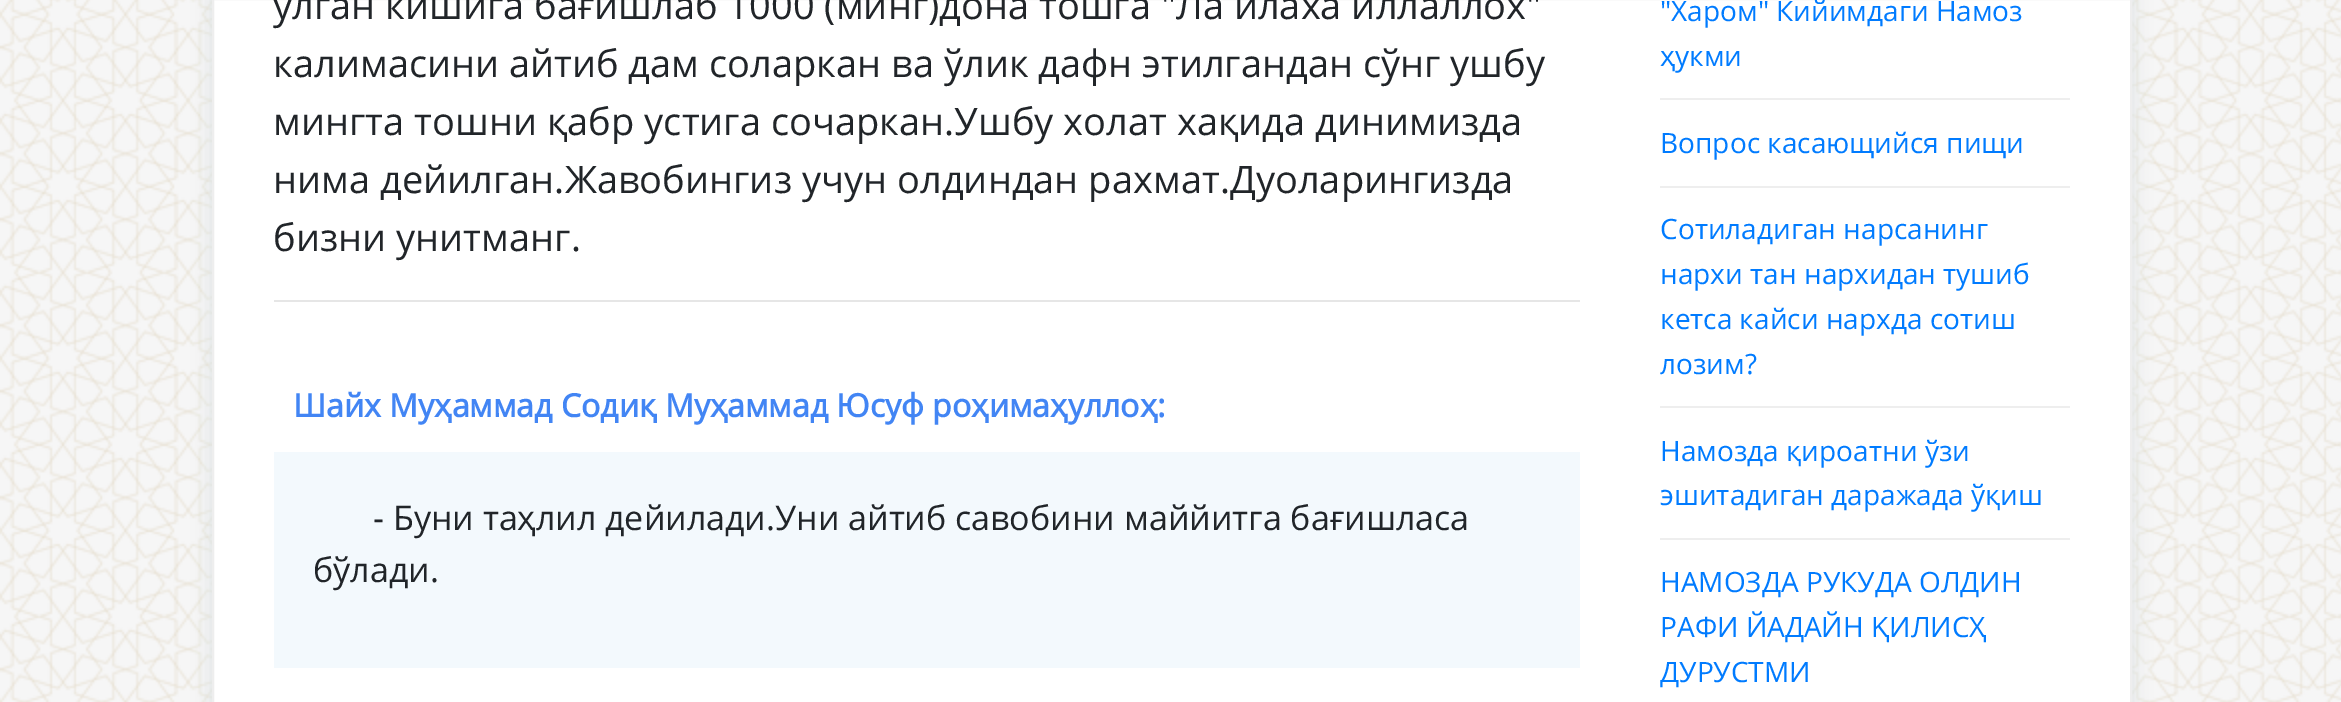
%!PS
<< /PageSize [2341 702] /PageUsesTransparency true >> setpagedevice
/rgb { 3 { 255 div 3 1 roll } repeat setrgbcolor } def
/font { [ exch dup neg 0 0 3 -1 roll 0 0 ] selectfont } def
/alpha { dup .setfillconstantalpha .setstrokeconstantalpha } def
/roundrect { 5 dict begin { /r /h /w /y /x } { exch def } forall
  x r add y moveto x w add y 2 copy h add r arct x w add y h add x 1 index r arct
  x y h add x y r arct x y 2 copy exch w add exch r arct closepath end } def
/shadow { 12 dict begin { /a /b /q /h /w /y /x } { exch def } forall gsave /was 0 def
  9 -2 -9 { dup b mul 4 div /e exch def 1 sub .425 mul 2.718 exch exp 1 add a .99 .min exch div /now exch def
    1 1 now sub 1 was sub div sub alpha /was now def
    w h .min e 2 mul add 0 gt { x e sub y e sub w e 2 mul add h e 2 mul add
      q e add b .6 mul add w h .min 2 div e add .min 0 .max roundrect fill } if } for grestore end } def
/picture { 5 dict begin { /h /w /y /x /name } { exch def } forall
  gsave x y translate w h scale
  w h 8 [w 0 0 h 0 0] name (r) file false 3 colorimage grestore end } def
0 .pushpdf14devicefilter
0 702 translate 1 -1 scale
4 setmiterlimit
242 242 242 rgb
0 0 2341 702 rectfill
(img/1.rgb) 0 0 2341 702 picture
220 226 227 rgb
212 -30 1920 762 0 10 1 shadow
255 255 255 rgb
213 -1 moveto 2131 -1 lineto 2131 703 lineto 213 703 lineto closepath gsave fill grestore
238 238 238 rgb
2 setlinewidth
stroke
[
  [274 300 1306 2 230 230 230]
  [274 452 1306 216 243 249 253]
  [1660 98 410 2 238 238 238]
  [1660 186 410 2 238 238 238]
  [1660 406 410 2 238 238 238]
  [1660 538 410 2 238 238 238]
] { aload pop rgb rectfill } forall
/OpenSans-Regular 38 font
33 37 41 rgb
[
  [(ўлган кишига бағишлаб 1000 \(минг\)дона тошга "Ла илаха иллаллох") 273 19]
  [(калимасини айтиб дам соларкан ва ўлик дафн этилгандан сўнг ушбу) 273 77]
  [(мингта тошни қабр устига сочаркан.Ушбу холат хақида динимизда) 273 135]
  [(нима дейилган.Жавобингиз учун олдиндан рахмат.Дуоларингизда) 273 193]
  [(бизни унитманг.) 273 251]
] { aload pop moveto show } forall
/OpenSans-Bold 32 font
66 133 244 rgb
293 417 moveto (Шайх Муҳаммад Содиқ Муҳаммад Юсуф роҳимаҳуллоҳ:) show
/OpenSans-Regular 34 font
33 37 41 rgb
373 530 moveto (- Буни таҳлил дейилади.Уни айтиб савобини маййитга бағишласа) show
313 582 moveto (бўлади.) show
/OpenSans-Regular 28 font
0 123 255 rgb
[
  [("Харом" Кийимдаги Намоз) 1660 21]
  [(ҳукми) 1660 66]
  [(Вопрос касающийся пищи) 1660 153]
  [(Сотиладиган нарсанинг) 1660 239]
  [(нархи тан нархидан тушиб) 1660 284]
  [(кетса кайси нархда сотиш) 1660 329]
  [(лозим?) 1660 374]
  [(Намозда қироатни ўзи) 1660 461]
  [(эшитадиган даражада ўқиш) 1660 505]
  [(НАМОЗДА РУКУДА ОЛДИН) 1660 592]
  [(РАФИ ЙАДАЙН ҚИЛИСҲ) 1660 637]
  [(ДУРУСТМИ) 1660 682]
] { aload pop moveto show } forall
.poppdf14devicefilter showpage
